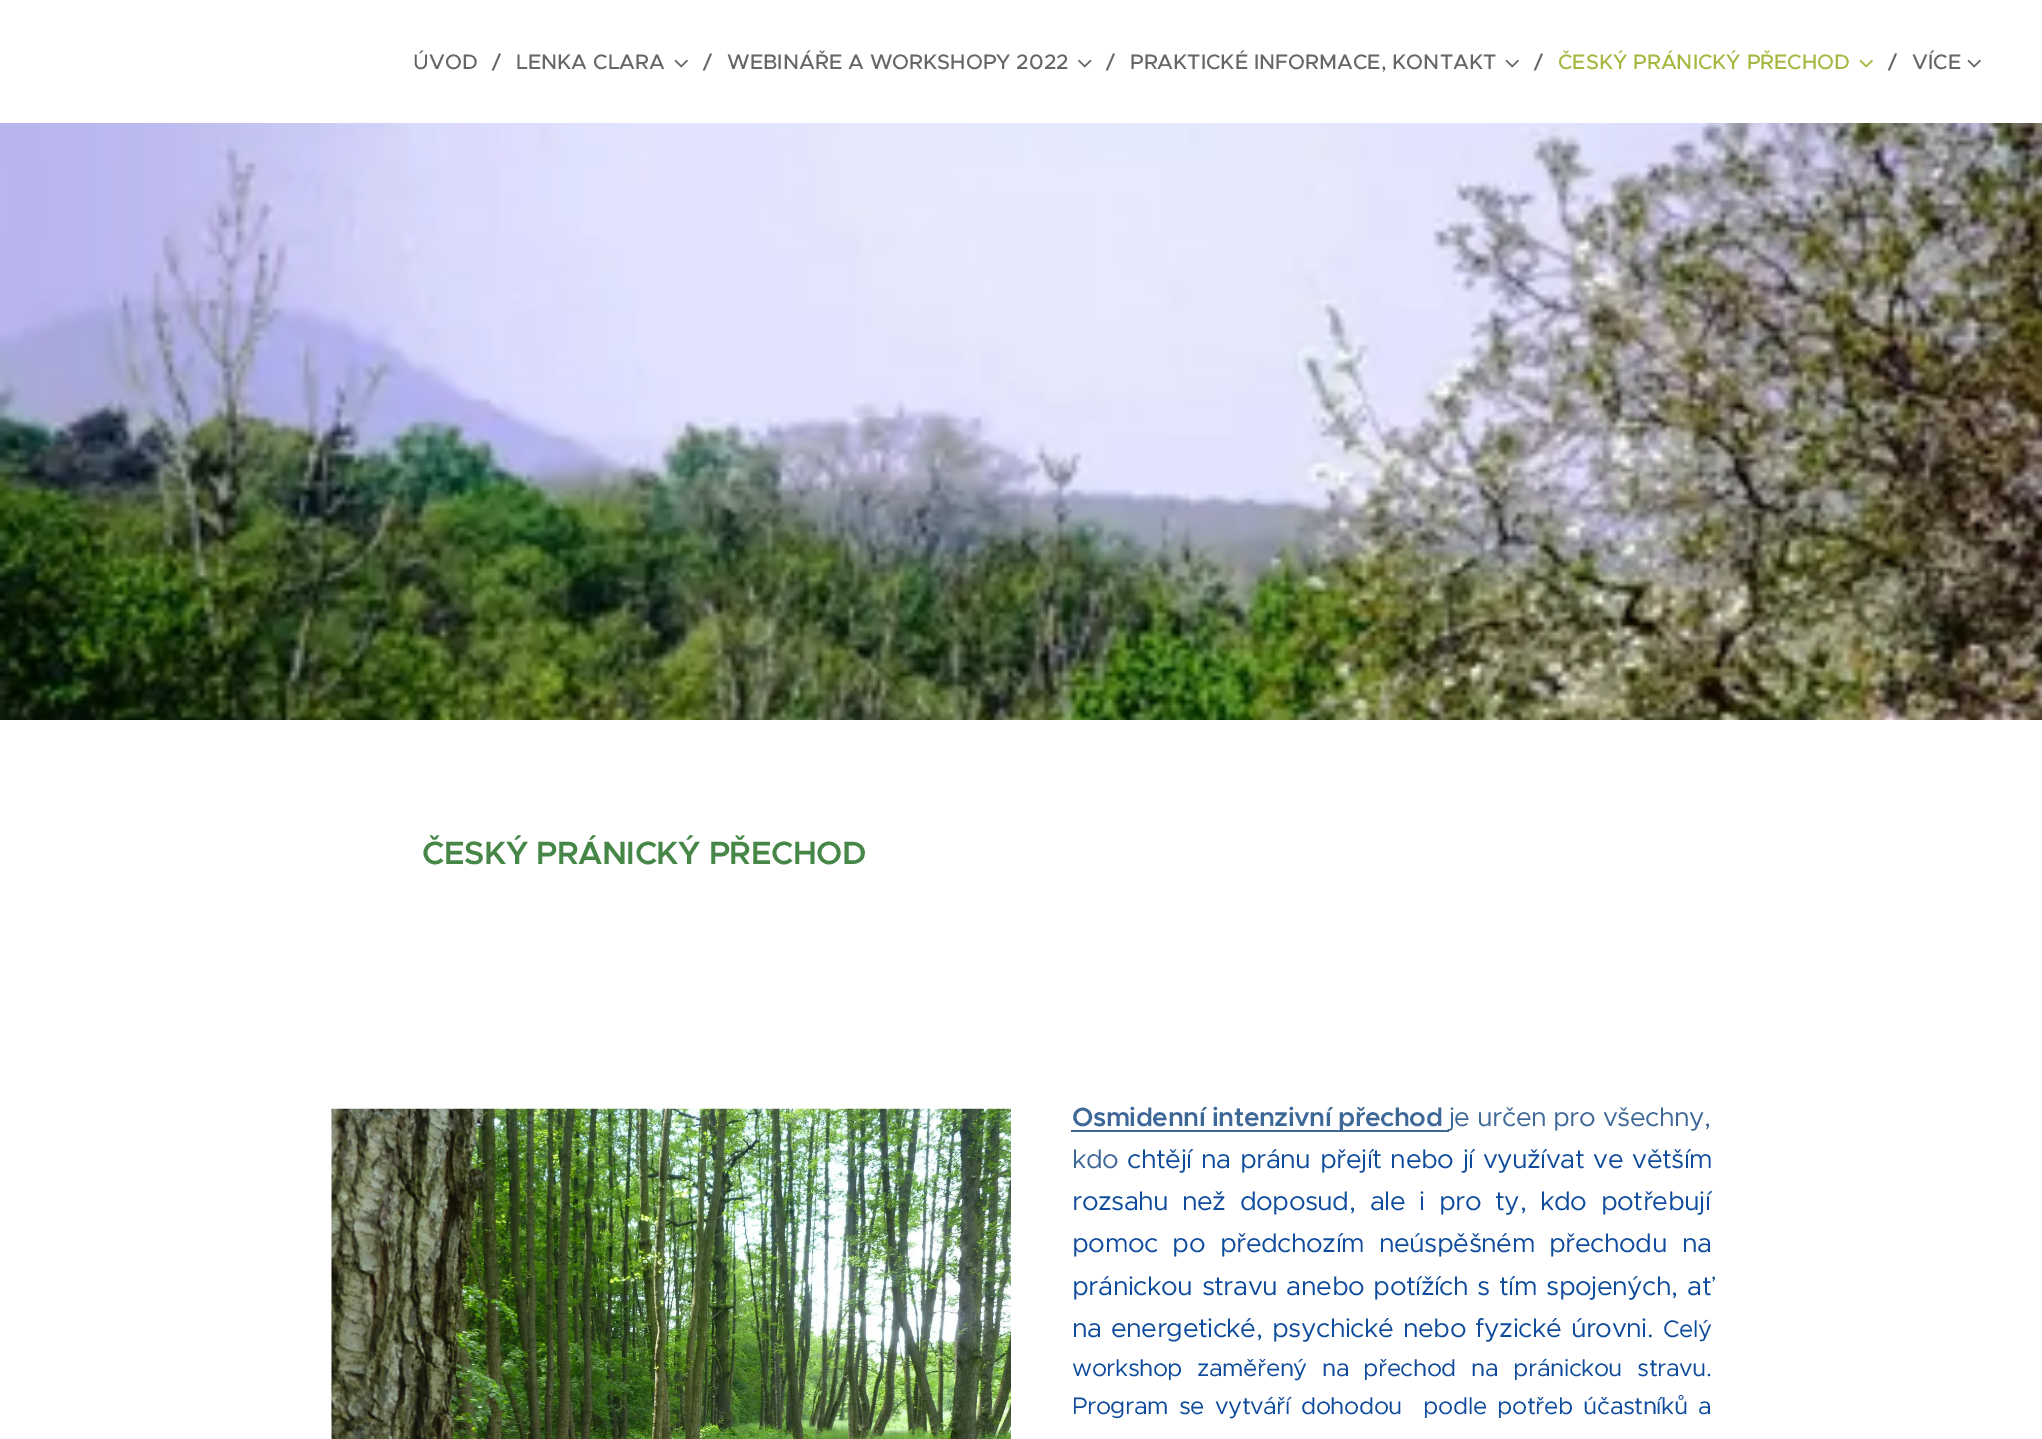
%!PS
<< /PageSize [2042 1439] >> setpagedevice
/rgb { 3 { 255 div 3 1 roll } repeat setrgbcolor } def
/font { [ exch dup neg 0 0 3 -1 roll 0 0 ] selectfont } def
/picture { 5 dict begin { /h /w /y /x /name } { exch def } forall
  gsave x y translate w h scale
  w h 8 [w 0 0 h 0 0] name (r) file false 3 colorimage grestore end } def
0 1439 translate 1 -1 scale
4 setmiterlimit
255 255 255 rgb
0 0 2042 1439 rectfill
(img/1.rgb) 674 59 14 9 picture
(img/2.rgb) 1078 59 14 9 picture
(img/1.rgb) 1505 59 14 9 picture
(img/3.rgb) 1859 59 14 9 picture
(img/1.rgb) 1967 59 14 9 picture
(img/4.rgb) 0 123 2042 597 picture
(img/5.rgb) 331 1108 680 331 picture
61 103 151 rgb
1071 1130 378 2 rectfill
/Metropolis-Medium 21 font
102 102 102 rgb
[
  [(ÚVOD) 413 69]
  [(/) 492 69]
  [(LENKA CLARA) 516 69]
  [(/) 703 69]
  [(WEBINÁŘE A WORKSHOPY 2022) 727 69]
  [(/) 1106 69]
  [(PRAKTICKÉ INFORMACE, KONTAKT) 1130 69]
  [(/) 1534 69]
] { aload pop moveto show } forall
168 183 65 rgb
1558 69 moveto (ČESKÝ PRÁNICKÝ PŘECHOD) show
102 102 102 rgb
1888 69 moveto (/) show
1912 69 moveto (VÍCE) show
/Metropolis-SemiBold 32.4 font
70 135 71 rgb
422 864 moveto -0.48 0 (ČESKÝ PRÁNICKÝ PŘECHOD) ashow
/Metropolis-SemiBold 26.4 font
61 103 151 rgb
1072 1126 moveto -0.48 0 (Osmidenní intenzivní přechod) ashow
/Metropolis-Regular 26.4 font
1449 1126 moveto -0.48 0 (je určen pro všechny,) ashow
1072 1168 moveto -0.48 0 (kdo) ashow
14 75 156 rgb
1127 1168 moveto 2 0 32 -0.48 0 (chtějí na pránu přejít nebo jí využívat ve větším) awidthshow
1072 1210 moveto -0.48 0 (rozsahu) ashow
1182 1210 moveto 7 0 32 -0.48 0 (než doposud, ale i pro ty, kdo potřebují) awidthshow
1072 1252 moveto 7.5 0 32 -0.48 0 (pomoc po předchozím neúspěšném) awidthshow
1549 1252 moveto 7.5 0 32 -0.48 0 (přechodu na) awidthshow
1072 1295 moveto 2 0 32 -0.48 0 (pránickou stravu anebo potížích s tím spojených, ať) awidthshow
1072 1337 moveto -0.48 0 (na) ashow
1111 1337 moveto 2.5 0 32 -0.48 0 (energetické, psychické nebo fyzické úrovni.) awidthshow
/Metropolis-Regular 24 font
1663 1337 moveto -0.48 0 (Celý) ashow
1072 1376 moveto 8.5 0 32 -0.48 0 (workshop zaměřený na) awidthshow
1363 1376 moveto 8.5 0 32 -0.48 0 (přechod na pránickou stravu.) awidthshow
1072 1414 moveto 4.25 0 32 -0.48 0 (Program se vytváří dohodou  podle potřeb účastníků a) awidthshow
showpage
